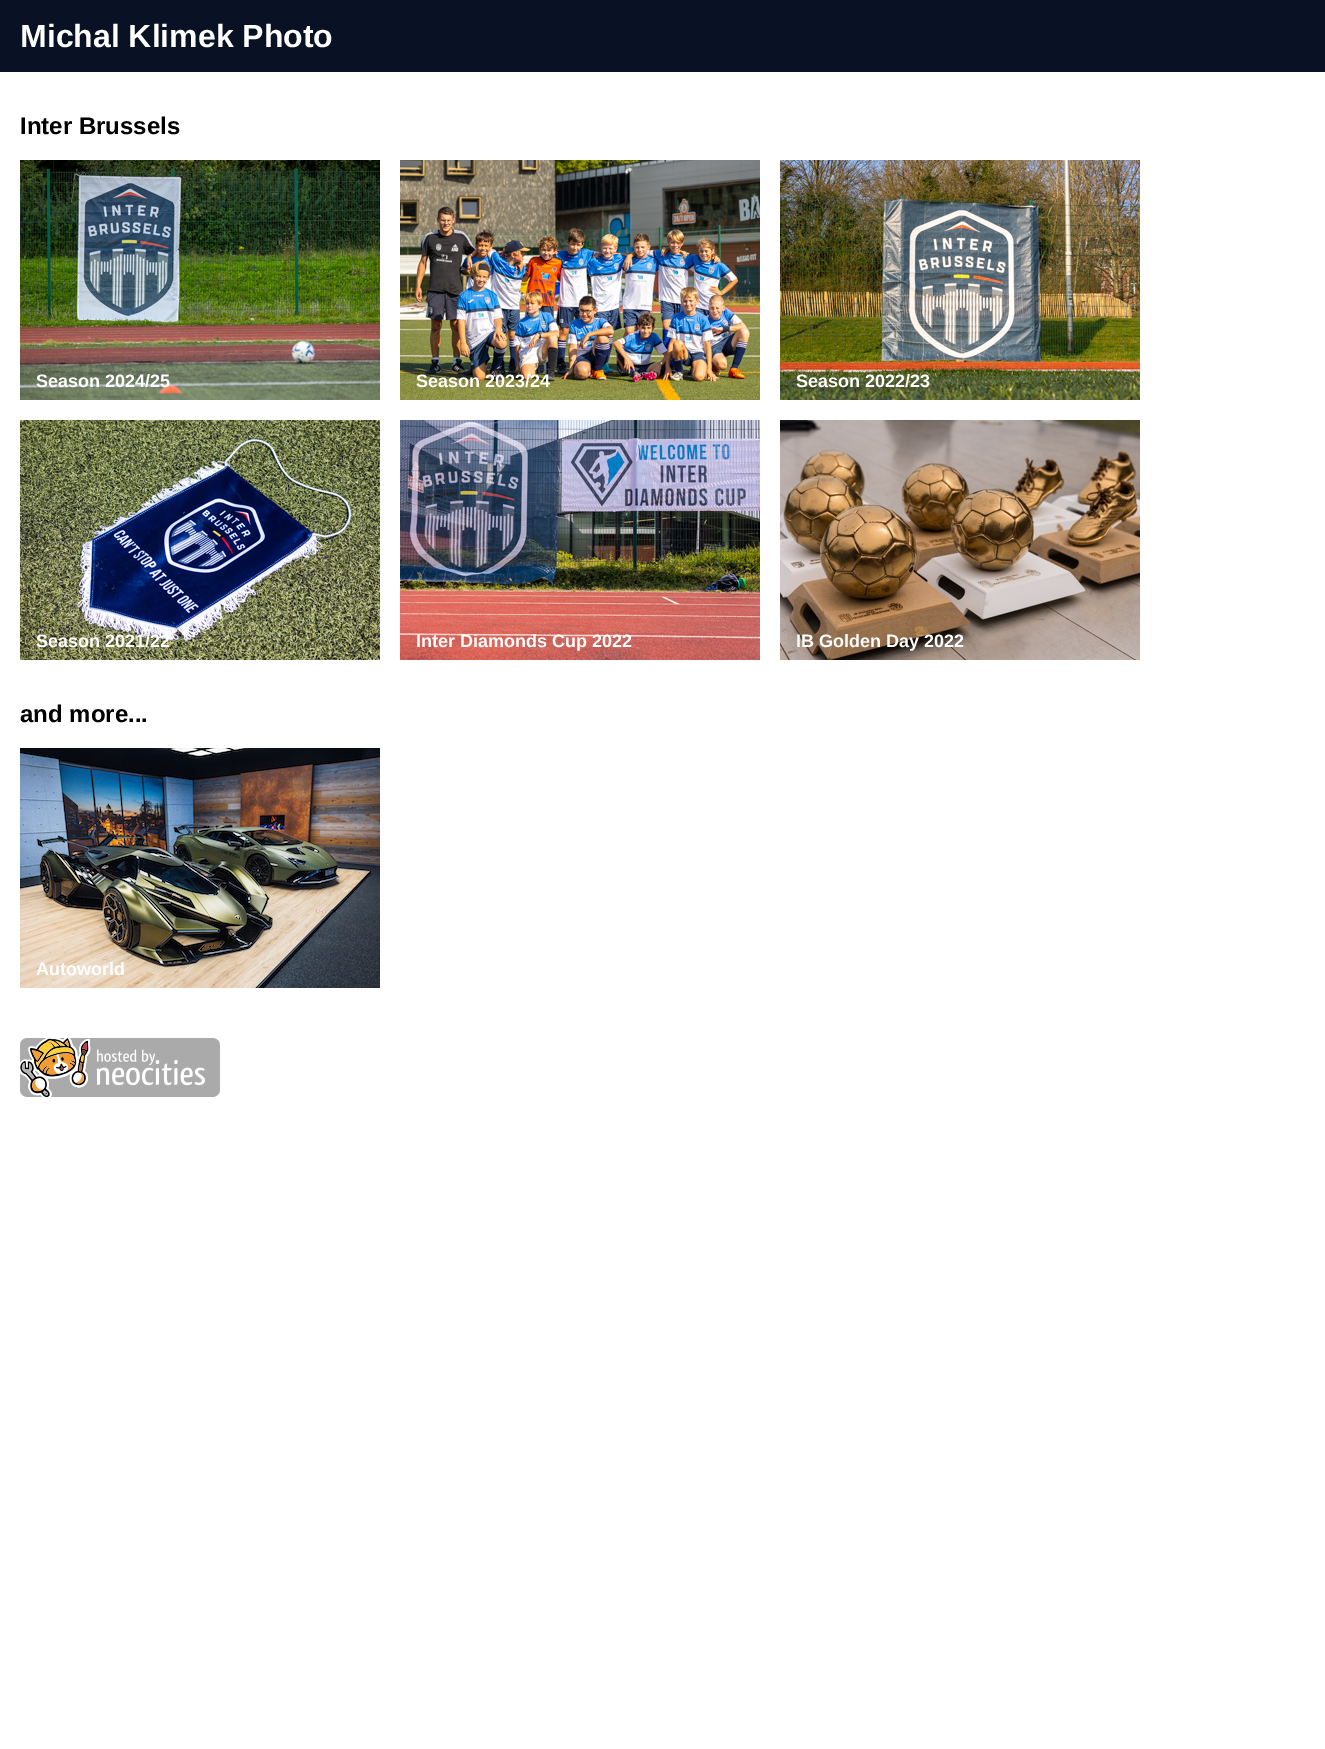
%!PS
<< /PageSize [1325 1749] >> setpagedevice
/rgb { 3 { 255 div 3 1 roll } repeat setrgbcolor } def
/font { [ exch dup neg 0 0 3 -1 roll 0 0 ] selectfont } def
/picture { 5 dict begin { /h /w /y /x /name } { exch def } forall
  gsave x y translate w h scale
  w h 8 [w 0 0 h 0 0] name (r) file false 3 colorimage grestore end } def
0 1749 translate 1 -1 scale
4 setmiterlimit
255 255 255 rgb
0 0 1325 1749 rectfill
8 18 36 rgb
0 0 1325 72 rectfill
(img/1.rgb) 20 160 360 240 picture
(img/2.rgb) 400 160 360 240 picture
(img/3.rgb) 780 160 360 240 picture
(img/4.rgb) 20 420 360 240 picture
(img/5.rgb) 400 420 360 240 picture
(img/6.rgb) 780 420 360 240 picture
(img/7.rgb) 20 748 360 240 picture
(img/8.rgb) 20 1038 200 59 picture
/LiberationSans-Bold 32 font
255 255 255 rgb
20 47 moveto (Michal Klimek Photo) show
/LiberationSans-Bold 24 font
0 0 0 rgb
20 134 moveto (Inter Brussels) show
/LiberationSans-Bold 18 font
255 255 255 rgb
[
  [(Season 2024/25) 36 387]
  [(Season 2023/24) 416 387]
  [(Season 2022/23) 796 387]
  [(Season 2021/22) 36 647]
  [(Inter Diamonds Cup 2022) 416 647]
  [(IB Golden Day 2022) 796 647]
] { aload pop moveto show } forall
/LiberationSans-Bold 24 font
0 0 0 rgb
20 722 moveto (and more...) show
/LiberationSans-Bold 18 font
255 255 255 rgb
36 975 moveto (Autoworld) show
showpage
